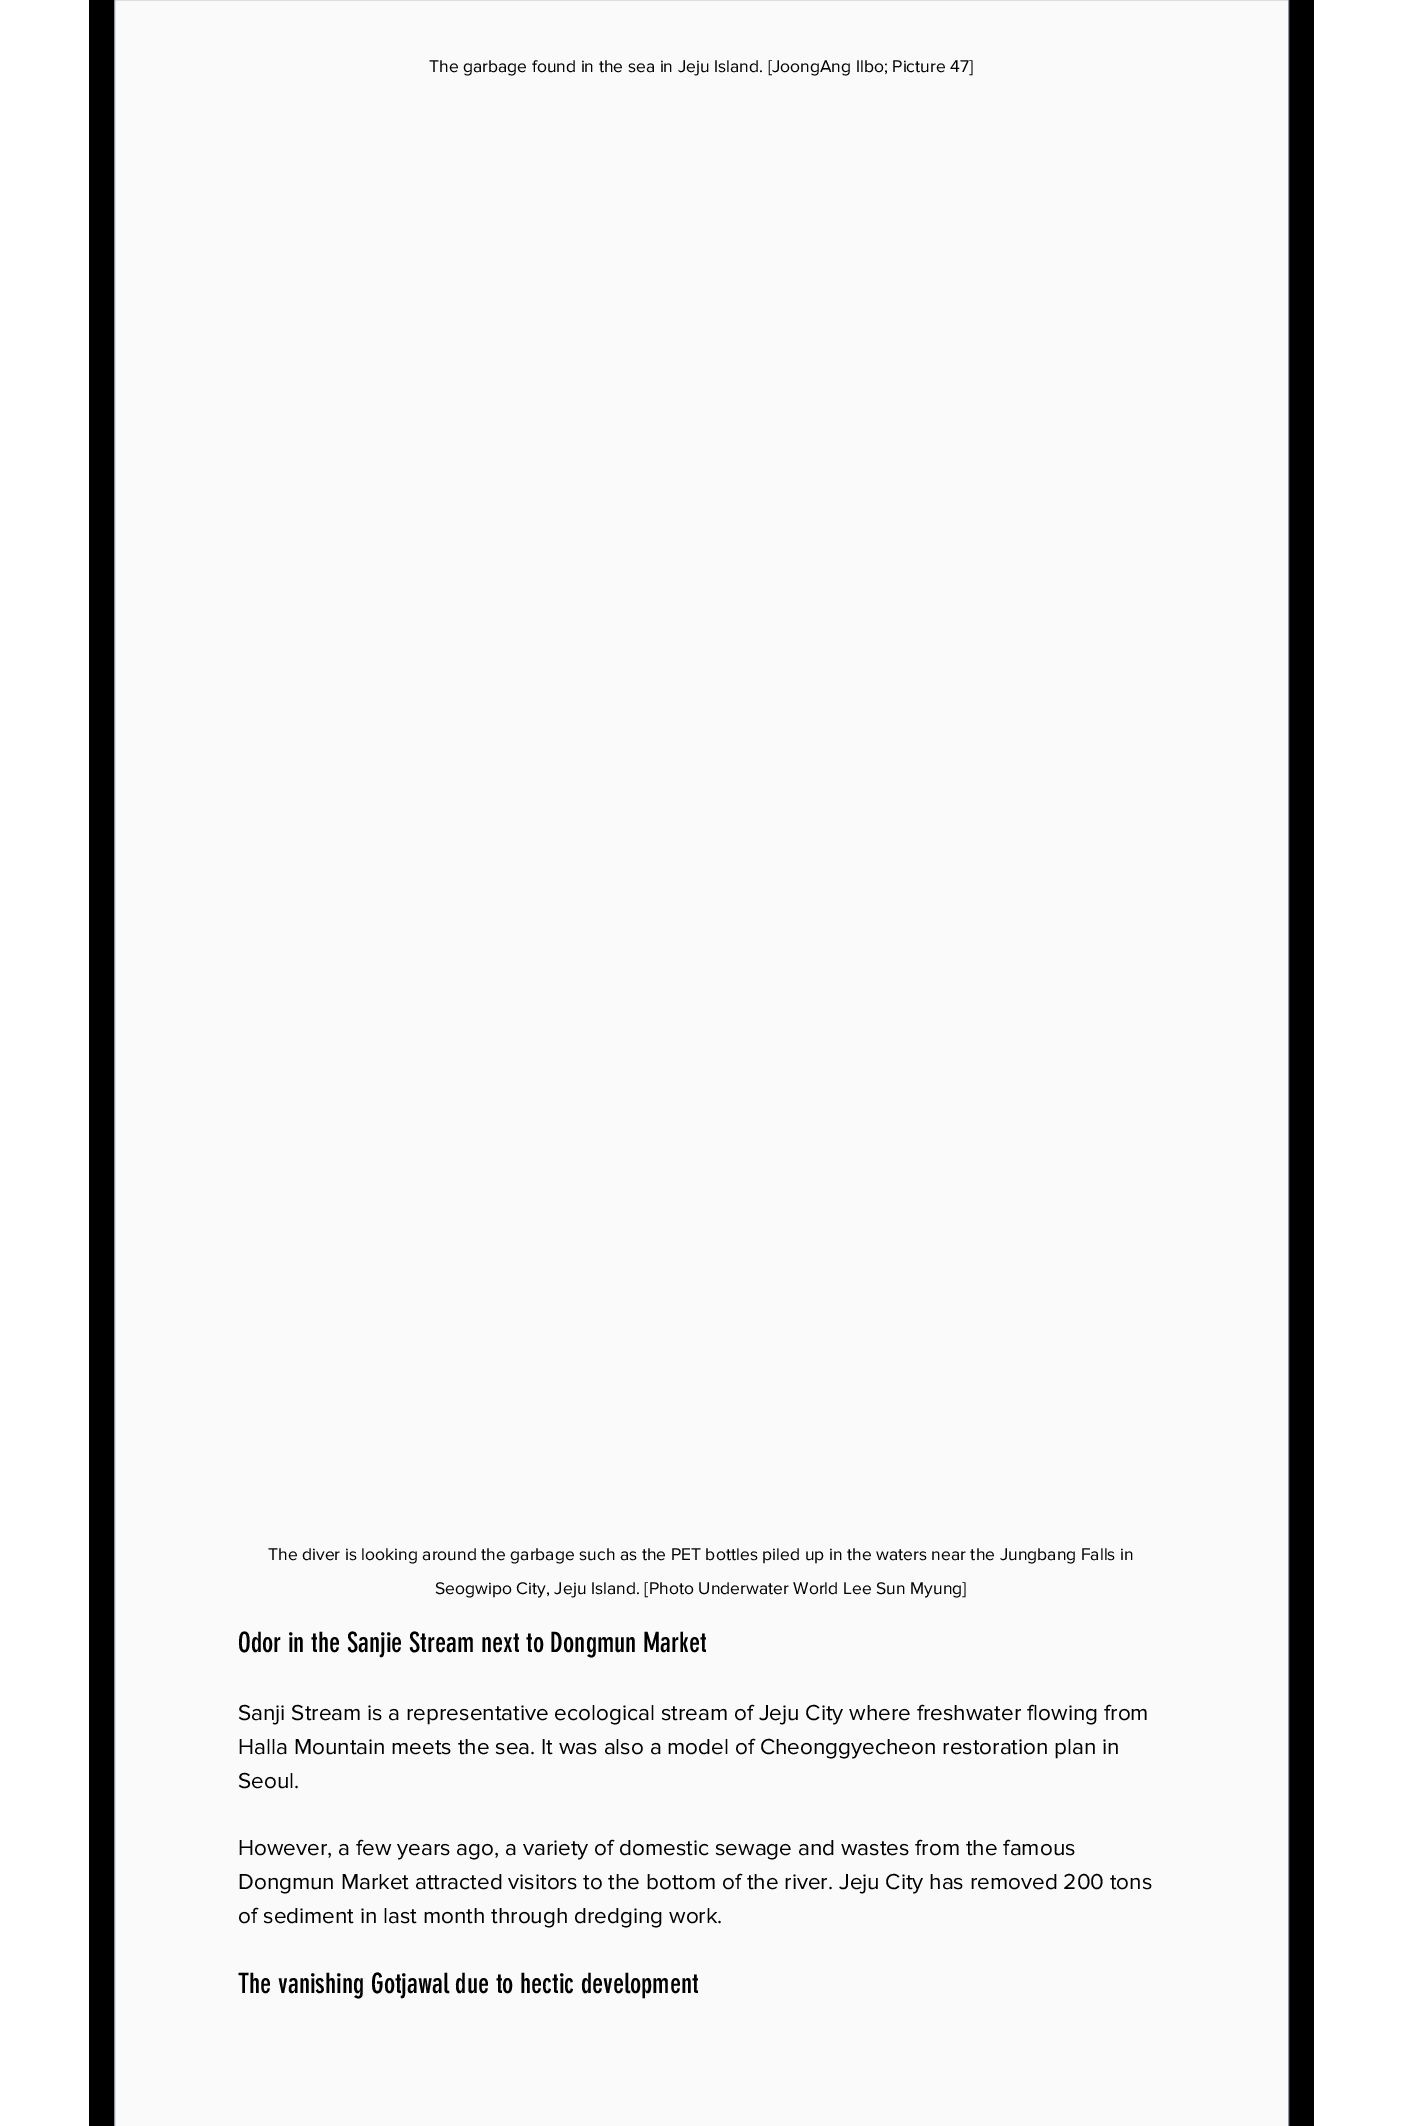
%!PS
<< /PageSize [1401 2126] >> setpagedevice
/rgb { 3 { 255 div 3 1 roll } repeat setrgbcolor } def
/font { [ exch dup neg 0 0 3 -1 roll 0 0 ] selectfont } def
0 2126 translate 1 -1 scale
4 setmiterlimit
255 255 255 rgb
0 0 1401 2126 rectfill
0 0 0 rgb
89 0 1225 2126 rectfill
250 250 250 rgb
114.5 -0.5 moveto 1288.5 -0.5 lineto 1288.5 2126.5 lineto 114.5 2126.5 lineto closepath gsave fill grestore
140 150 155 rgb
stroke
/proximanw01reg-Regular 17.5 font
0 0 0 rgb
[
  [(The garbage found in the sea in Jeju Island. [JoongAng Ilbo; Picture 47]) 429 72]
  [(The diver is looking around the garbage such as the PET bottles piled up in the waters near the Jungbang Falls in) 268 1560]
  [(Seogwipo City, Jeju Island. [Photo Underwater World Lee Sun Myung]) 435 1594]
] { aload pop moveto show } forall
/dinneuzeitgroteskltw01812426-Regular 27.5 font
238 1652 moveto (Odor in the Sanjie Stream next to Dongmun Market) show
/proximanw01reg-Regular 22.5 font
[
  [(Sanji Stream is a representative ecological stream of Jeju City where freshwater flowing from) 238 1720]
  [(Halla Mountain meets the sea. It was also a model of Cheonggyecheon restoration plan in) 238 1754]
  [(Seoul.) 238 1788]
  [(However, a few years ago, a variety of domestic sewage and wastes from the famous) 238 1855]
  [(Dongmun Market attracted visitors to the bottom of the river. Jeju City has removed 200 tons) 238 1889]
  [(of sediment in last month through dredging work.) 238 1923]
] { aload pop moveto show } forall
/dinneuzeitgroteskltw01812426-Regular 27.5 font
238 1993 moveto (The vanishing Gotjawal due to hectic development) show
showpage
